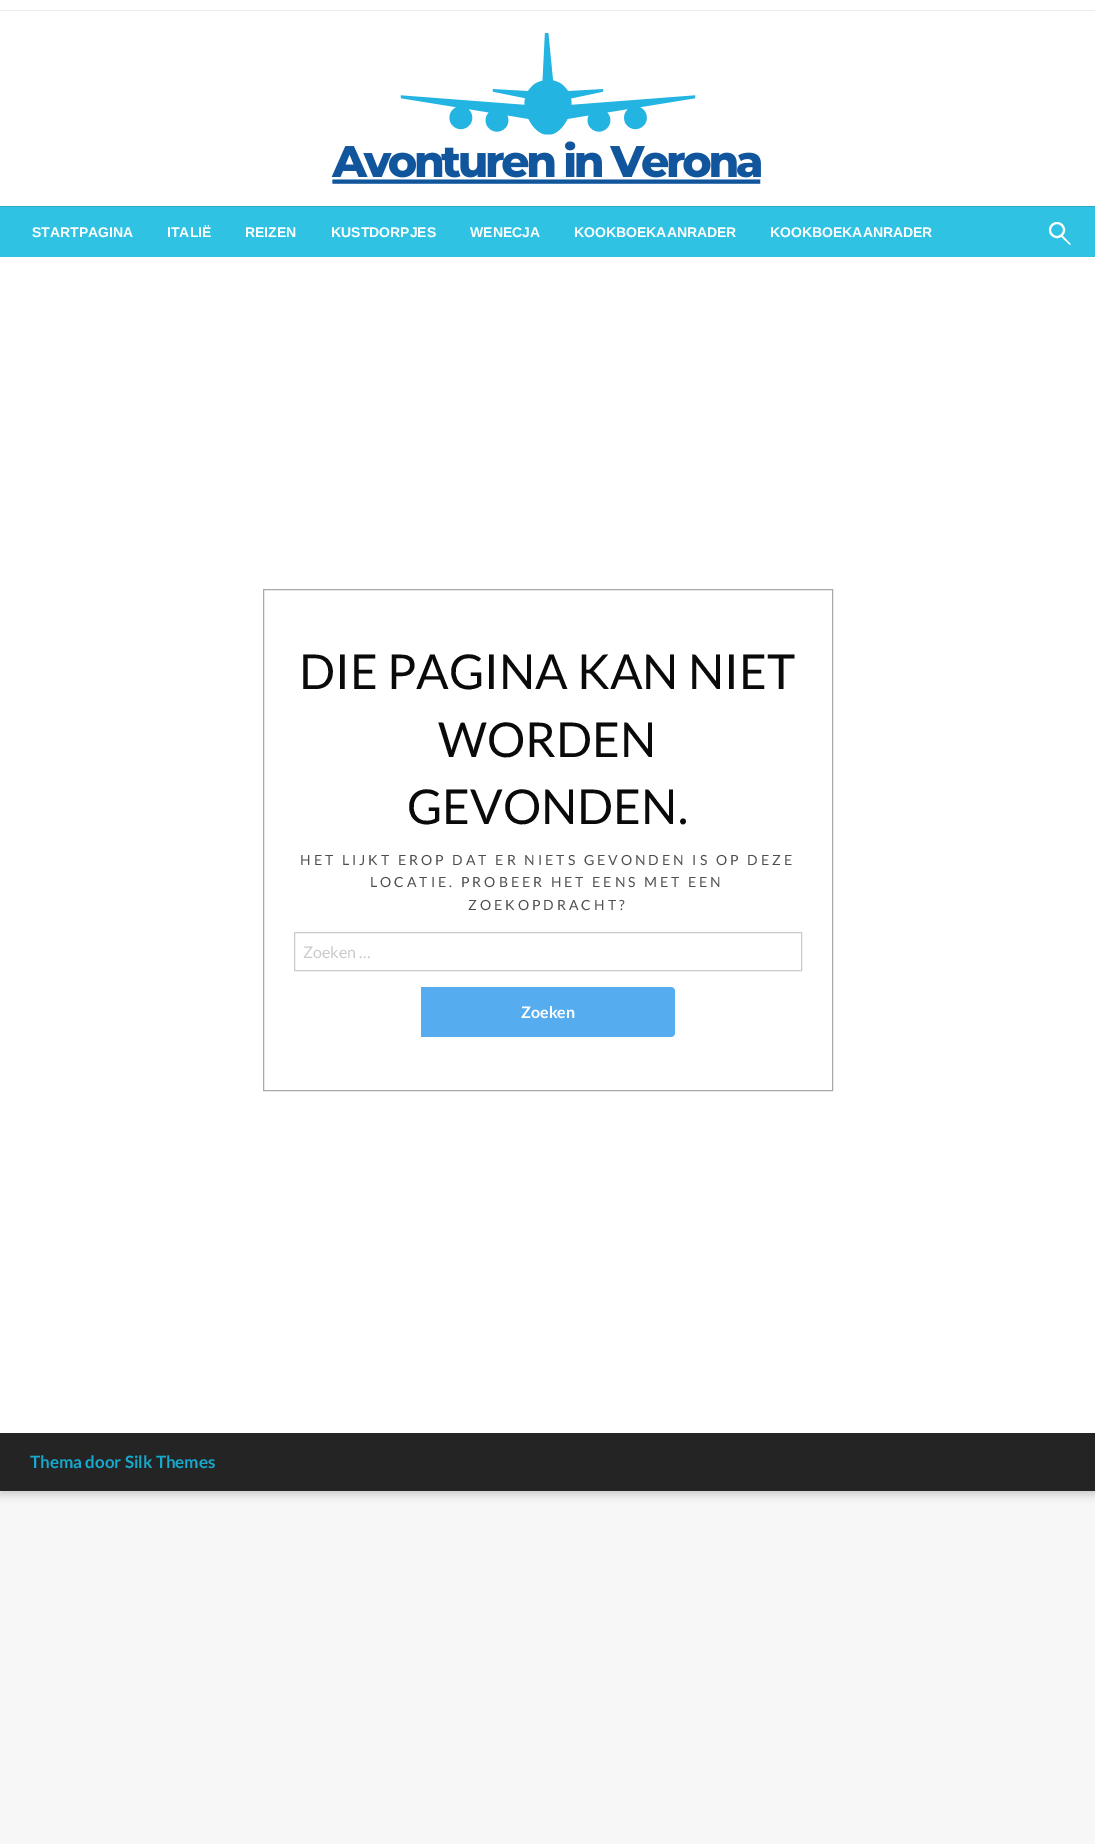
%!PS
<< /PageSize [1095 1844] /PageUsesTransparency true >> setpagedevice
/rgb { 3 { 255 div 3 1 roll } repeat setrgbcolor } def
/font { [ exch dup neg 0 0 3 -1 roll 0 0 ] selectfont } def
/alpha { dup .setfillconstantalpha .setstrokeconstantalpha } def
/circle { newpath 0 360 arc closepath } def
/roundrect { 5 dict begin { /r /h /w /y /x } { exch def } forall
  x r add y moveto x w add y 2 copy h add r arct x w add y h add x 1 index r arct
  x y h add x y r arct x y 2 copy exch w add exch r arct closepath end } def
/shadow { 12 dict begin { /a /b /q /h /w /y /x } { exch def } forall gsave /was 0 def
  9 -2 -9 { dup b mul 4 div /e exch def 1 sub .425 mul 2.718 exch exp 1 add a .99 .min exch div /now exch def
    1 1 now sub 1 was sub div sub alpha /was now def
    w h .min e 2 mul add 0 gt { x e sub y e sub w e 2 mul add h e 2 mul add
      q e add b .6 mul add w h .min 2 div e add .min 0 .max roundrect fill } if } for grestore end } def
/picture { 5 dict begin { /h /w /y /x /name } { exch def } forall
  gsave x y translate w h scale
  w h 8 [w 0 0 h 0 0] name (r) file false 3 colorimage grestore end } def
0 .pushpdf14devicefilter
0 1844 translate 1 -1 scale
4 setmiterlimit
247 247 247 rgb
0 0 1095 1844 rectfill
0 0 0 rgb
0 3 1095 1491 0 5 0.09 shadow
0 4 1095 1491 0 4 0.1 shadow
[
  [0 0 1095 10 255 255 255]
  [0 10 1095 1 236 237 231]
  [0 11 1095 195 255 255 255]
] { aload pop rgb rectfill } forall
(img/1.rgb) 331 33 430 151 picture
47 194 227 rgb
0 207 1095 50 rectfill
41 171 200 rgb
0 206 1095 1 rectfill
255 255 255 rgb
2 setlinewidth
1057 230 7 circle stroke
1062.5 235.5 moveto 1070.5 244 lineto 1071 244.5 1070 245 1069.5 244.5 curveto 1061 236.5 lineto 1060.5 236 1061.5 234.5 1062.5 235.5 curveto closepath fill
0 257 1095 1176 rectfill
169 169 169 rgb
1 setlinewidth
263.5 589.5 569 501 rectstroke
202 202 202 rgb
294.5 932.5 507 38 rectstroke
85 172 238 rgb
421 987 moveto 671 987 lineto 673 987 675 989 675 991 curveto 675 1033 lineto 675 1035 673 1037 671 1037 curveto 421 1037 lineto closepath fill
36 36 36 rgb
0 1433 1095 58 rectfill
/LiberationSans-Bold 14 font
255 255 255 rgb
[
  [(STARTPAGINA) 32 237]
  [(ITALIË) 167 237]
  [(REIZEN) 245 237]
  [(KUSTDORPJES) 331 237]
  [(WENECJA) 470 237]
  [(KOOKBOEKAANRADER) 574 237]
  [(KOOKBOEKAANRADER) 770 237]
] { aload pop moveto show } forall
/Lato-Regular 48 font
10 10 10 rgb
[
  [(DIE PAGINA KAN NIET) 299 689]
  [(WORDEN) 438 757]
  [(GEVONDEN.) 407 824]
] { aload pop moveto show } forall
/Lato-Regular 14 font
80 77 77 rgb
300 865 moveto 3 0 (HET LIJKT EROP DAT ER NIETS GEVONDEN IS OP DEZE) ashow
370 887 moveto 3 0 (LOCATIE. PROBEER HET EENS MET EEN) ashow
468 910 moveto 3 0 (ZOEKOPDRACHT?) ashow
/Lato-Regular 16 font
202 202 202 rgb
303 958 moveto (Zoeken …) show
/Lato-Bold 16 font
255 255 255 rgb
521 1018 moveto (Zoeken) show
/Lato-Bold 17 font
23 169 205 rgb
30 1468 moveto (Thema door Silk Themes) show
.poppdf14devicefilter showpage
